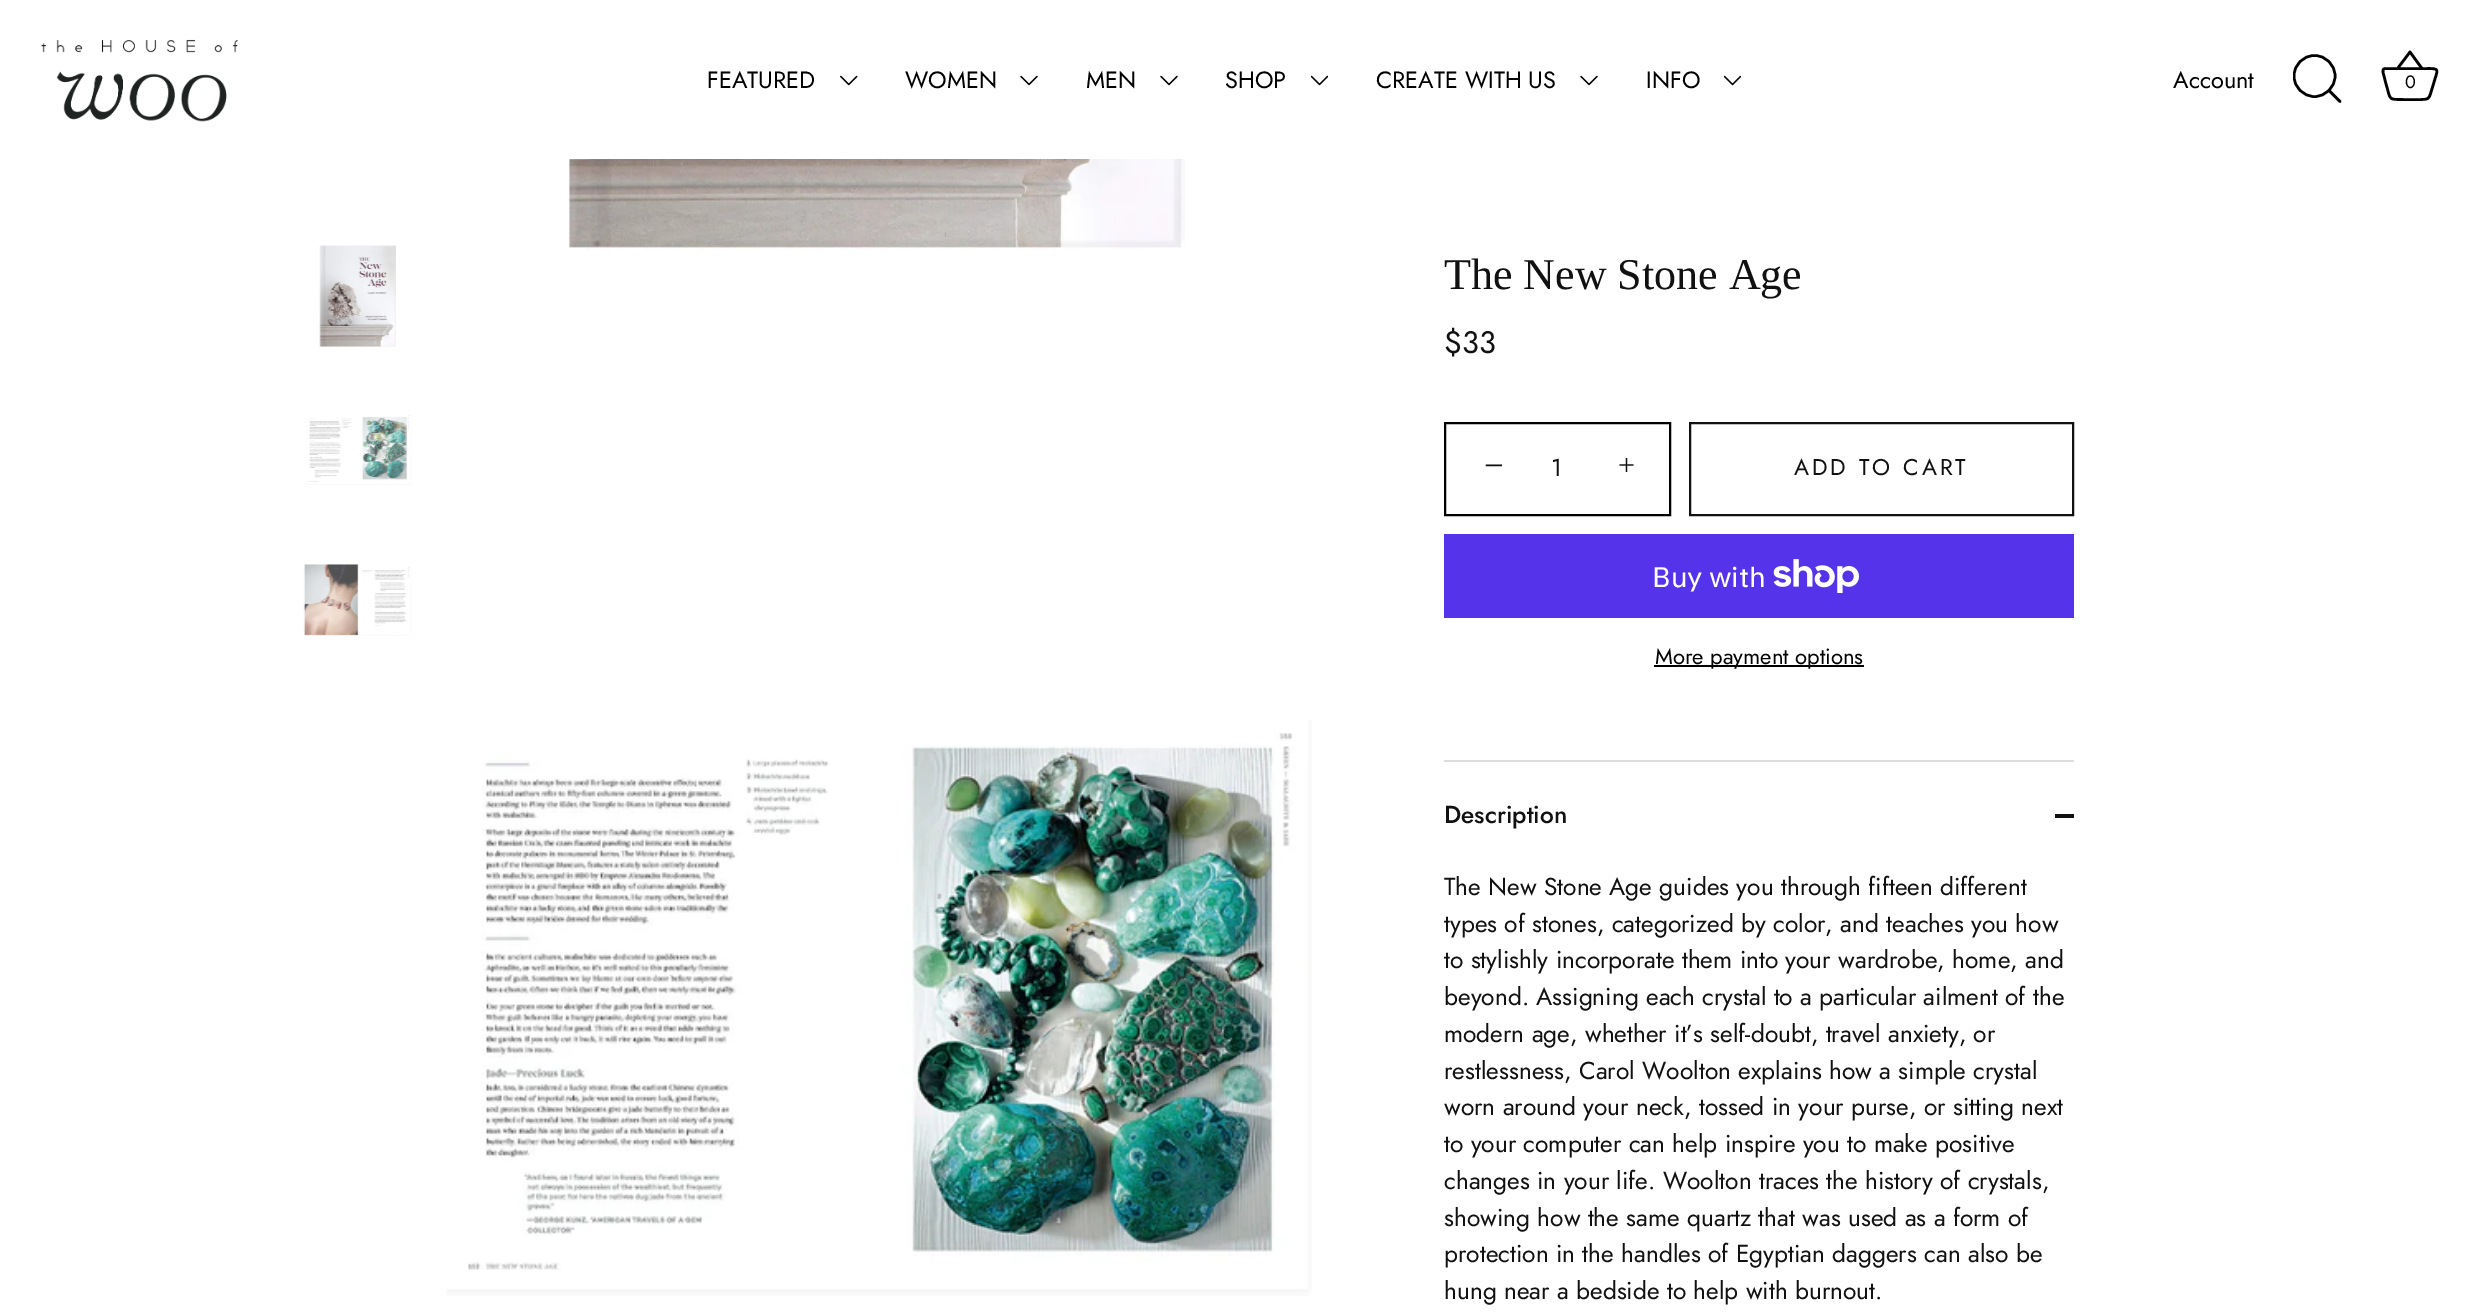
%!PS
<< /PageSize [2466 1314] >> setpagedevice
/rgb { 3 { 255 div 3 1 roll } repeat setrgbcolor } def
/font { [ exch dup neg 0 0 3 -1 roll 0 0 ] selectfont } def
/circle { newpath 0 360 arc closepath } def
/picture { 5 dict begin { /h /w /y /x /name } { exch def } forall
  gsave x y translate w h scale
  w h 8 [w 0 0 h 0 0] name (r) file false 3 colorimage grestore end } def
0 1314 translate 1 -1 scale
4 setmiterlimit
255 255 255 rgb
0 0 2466 1314 rectfill
(img/1.rgb) 41 39 197 83 picture
(img/2.rgb) 840 75 18 11 picture
(img/3.rgb) 1020 75 18 11 picture
(img/3.rgb) 1160 75 18 11 picture
(img/4.rgb) 1311 75 17 11 picture
(img/3.rgb) 1580 75 18 11 picture
(img/4.rgb) 1724 75 17 11 picture
gsave
2293 54 50 51 rectclip
0 0 0 rgb
2.5 setlinewidth
2314.5 76 20.5 circle stroke
grestore
0 0 0 rgb
2.5 setlinewidth
1 setlinecap
1 setlinejoin
2340 101.5 moveto 2329 90.5 lineto stroke
2.6 setlinewidth
0 setlinecap
2385.5 68.5 moveto 2381 68.5 2383.5 74 2384 76 curveto 2386 84 lineto 2391 100.5 2387.5 99.5 2404.5 99.5 curveto 2420 99.5 lineto 2428 99.5 2429 99.5 2431 92 curveto 2433.5 84 lineto 2437.5 69 2441 68.5 2426 68.5 curveto 2385.5 68.5 lineto 2397.5 68.5 moveto 2410 52 lineto 2422 68.5 lineto stroke
(img/5.rgb) 319 245 77 102 picture
(img/6.rgb) 305 415 107 70 picture
(img/7.rgb) 303 564 109 72 picture
(img/8.rgb) 568 159 617 91 picture
(img/9.rgb) 446 720 866 576 picture
2 setlinewidth
0 setlinejoin
1445 423 225 92 rectstroke
17 17 17 rgb
1690 423 383 92 rectstroke
84 51 235 rgb
1444 534 630 84 rectfill
(img/10.rgb) 1773 559 86 34 picture
[
  [1654 665 210 2 0 0 0]
  [1444 760 630 2 221 221 221]
  [2055 814 19 4 17 17 17]
] { aload pop rgb rectfill } forall
/Jost-Regular 23.5 font
0 0 0 rgb
[
  [(FEATURED) 707 88]
  [(WOMEN) 905 88]
  [(MEN) 1086 88]
  [(SHOP) 1225 88]
  [(CREATE WITH US) 1376 88]
  [(INFO) 1646 88]
  [(Account) 2173 88]
] { aload pop moveto show } forall
/Jost-Regular 18 font
2405 88 moveto (0) show
/LiberationSerif-Regular 44 font
17 17 17 rgb
1444 289 moveto (The New Stone Age) show
/Jost-Regular 31 font
1444 353 moveto ($33) show
/LiberationSerif-Regular 35 font
1484 477 moveto (−) show
/Jost-Regular 24.5 font
1551 476 moveto 1 0 (1) ashow
/LiberationSerif-Regular 30 font
1618 475 moveto (+) show
/Jost-Regular 22.75 font
1794 475 moveto 3 0 (ADD TO CART) ashow
/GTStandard-Regular 28 font
255 255 255 rgb
1652 587 moveto (Buy with) show
/Jost-Regular 22 font
0 0 0 rgb
1655 664 moveto (More payment options) show
/Jost-Medium 24.5 font
17 17 17 rgb
1444 823 moveto (Description) show
/Jost-Regular 24.5 font
[
  [(The New Stone Age guides you through fifteen different) 1444 895]
  [(types of stones, categorized by color, and teaches you how) 1444 932]
  [(to stylishly incorporate them into your wardrobe, home, and) 1444 968]
  [(beyond. Assigning each crystal to a particular ailment of the) 1444 1005]
  [(modern age, whether it’s self-doubt, travel anxiety, or) 1444 1042]
  [(restlessness, Carol Woolton explains how a simple crystal) 1444 1079]
  [(worn around your neck, tossed in your purse, or sitting next) 1444 1115]
  [(to your computer can help inspire you to make positive) 1444 1152]
  [(changes in your life. Woolton traces the history of crystals,) 1444 1189]
  [(showing how the same quartz that was used as a form of) 1444 1226]
  [(protection in the handles of Egyptian daggers can also be) 1444 1262]
  [(hung near a bedside to help with burnout.) 1444 1299]
] { aload pop moveto show } forall
showpage
